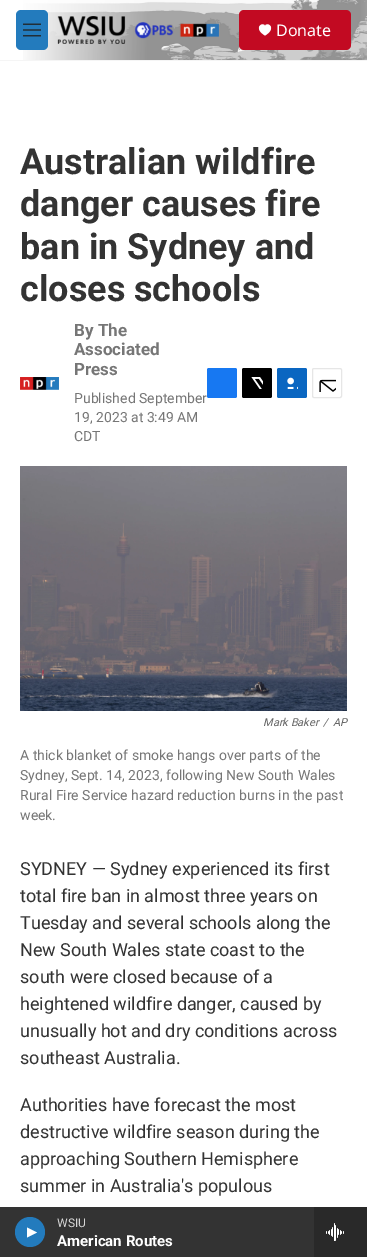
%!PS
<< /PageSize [367 1257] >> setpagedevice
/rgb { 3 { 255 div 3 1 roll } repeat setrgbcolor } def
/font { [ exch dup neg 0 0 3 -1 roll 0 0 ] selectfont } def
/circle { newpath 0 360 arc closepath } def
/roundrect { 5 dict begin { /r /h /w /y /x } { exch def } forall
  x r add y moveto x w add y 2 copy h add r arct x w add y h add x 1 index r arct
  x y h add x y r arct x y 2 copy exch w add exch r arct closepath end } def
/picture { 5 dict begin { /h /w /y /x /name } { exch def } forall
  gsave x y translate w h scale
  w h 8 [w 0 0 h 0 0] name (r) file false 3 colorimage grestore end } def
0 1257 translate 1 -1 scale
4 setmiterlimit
255 255 255 rgb
0 0 367 1257 rectfill
245 245 245 rgb
0 60 367 1 rectfill
(img/1.rgb) 23 0 344 60 picture
35 123 189 rgb
16 10 32 40 5 roundrect fill
(img/2.rgb) 23 23 18 14 picture
(img/3.rgb) 57 16 162 28 picture
194 10 34 rgb
239 10 112 40 5 roundrect fill
255 255 255 rgb
265 26 moveto 263 21 252.5 28 265 35.5 curveto 277.5 28 267 21 265 26 curveto closepath fill
51 51 51 rgb
0 1207 314 50 rectfill
35 123 189 rgb
30 1232 15 circle fill
255 255 255 rgb
27 1227.5 moveto 37 1232.5 lineto 27 1237.5 lineto closepath fill
41 41 41 rgb
314 1207 53 50 rectfill
(img/4.rgb) 326 1223 18 18 picture
(img/5.rgb) 20 377 39 13 picture
23 120 242 rgb
207 368 30 30 2 roundrect fill
0 0 0 rgb
242 368 30 30 2 roundrect fill
(img/6.rgb) 251 377 12 12 picture
10 102 193 rgb
277 368 30 30 2 roundrect fill
(img/7.rgb) 287 377 11 12 picture
230 230 230 rgb
312.5 368.5 29 29 1.5 roundrect stroke
(img/8.rgb) 319 379 17 13 picture
(img/9.rgb) 20 466 327 245 picture
/NotoSans-Regular 16 font
255 255 255 rgb
276 36 moveto (Donate) show
/Roboto-Regular 12 font
214 214 214 rgb
57 1227 moveto (WSIU) show
/Roboto-Bold 15 font
255 255 255 rgb
57 1246 moveto (American Routes) show
/Roboto-Bold 36 font
51 51 51 rgb
[
  [(Australian wildfire) 20 174]
  [(danger causes fire) 20 216]
  [(ban in Sydney and) 20 259]
  [(closes schools) 20 301]
] { aload pop moveto show } forall
/Roboto-Bold 17 font
118 118 118 rgb
[
  [(By The) 74 336]
  [(Associated) 74 355]
  [(Press) 74 375]
] { aload pop moveto show } forall
/Roboto-Regular 14 font
[
  [(Published September) 74 403]
  [(19, 2023 at 3:49 AM) 74 422]
  [(CDT) 74 441]
] { aload pop moveto show } forall
/Roboto-Italic 11 font
102 102 102 rgb
[
  [(Mark Baker) 263 726]
  [(/) 323 726]
  [(AP) 333 726]
] { aload pop moveto show } forall
/Roboto-Regular 14 font
118 118 118 rgb
[
  [(A thick blanket of smoke hangs over parts of the) 20 760]
  [(Sydney, Sept. 14, 2023, following New South Wales) 20 780]
  [(Rural Fire Service hazard reduction burns in the past) 20 800]
  [(week.) 20 820]
] { aload pop moveto show } forall
/Roboto-Regular 18 font
51 51 51 rgb
[
  [(SYDNEY — Sydney experienced its first) 20 875]
  [(total fire ban in almost three years on) 20 902]
  [(Tuesday and several schools along the) 20 929]
  [(New South Wales state coast to the) 20 956]
  [(south were closed because of a) 20 983]
  [(heightened wildfire danger, caused by) 20 1010]
  [(unusually hot and dry conditions across) 20 1037]
  [(southeast Australia.) 20 1064]
  [(Authorities have forecast the most) 20 1111]
  [(destructive wildfire season during the) 20 1138]
  [(approaching Southern Hemisphere) 20 1165]
  [(summer in Australia's populous) 20 1192]
] { aload pop moveto show } forall
showpage
